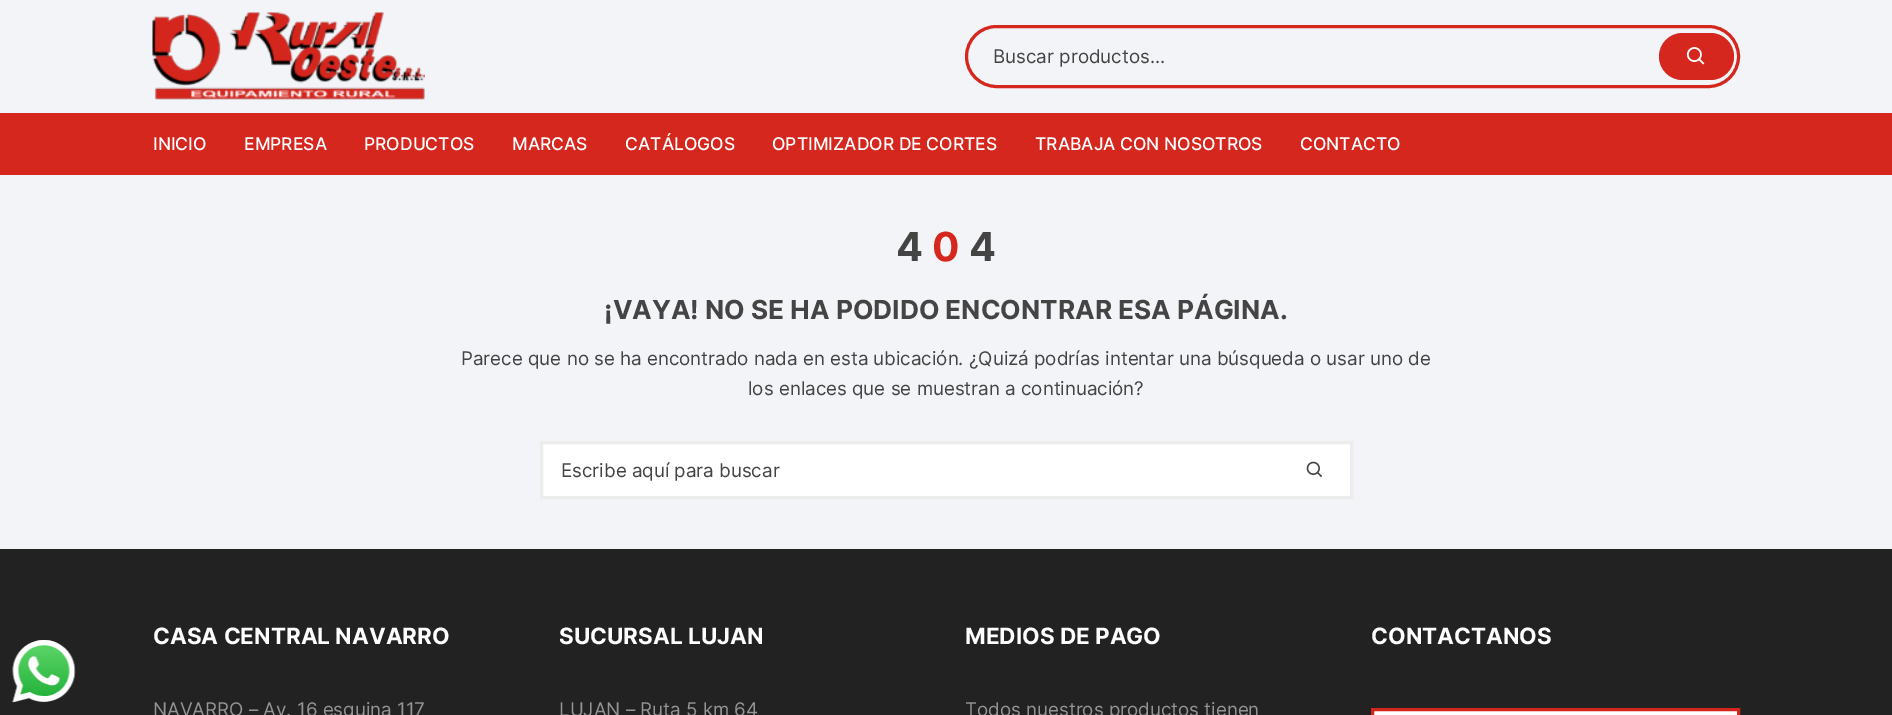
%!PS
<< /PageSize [1892 715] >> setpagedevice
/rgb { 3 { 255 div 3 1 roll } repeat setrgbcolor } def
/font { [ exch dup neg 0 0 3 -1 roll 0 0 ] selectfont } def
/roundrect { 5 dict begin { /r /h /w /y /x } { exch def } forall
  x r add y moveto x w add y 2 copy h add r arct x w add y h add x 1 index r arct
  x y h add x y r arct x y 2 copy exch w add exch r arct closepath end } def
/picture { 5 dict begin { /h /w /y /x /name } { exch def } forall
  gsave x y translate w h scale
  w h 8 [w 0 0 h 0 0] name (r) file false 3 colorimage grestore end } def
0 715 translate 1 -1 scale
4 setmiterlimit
243 244 248 rgb
0 0 1892 715 rectfill
34 34 34 rgb
0 549 1892 166 rectfill
(img/1.rgb) 12 640 64 63 picture
(img/2.rgb) 152 12 273 88 picture
213 39 30 rgb
3 setlinewidth
966.5 26.5 772 60 30 roundrect stroke
1659 33 75 47 23.5 roundrect fill
(img/3.rgb) 1686 47 19 18 picture
0 113 1892 62 rectfill
255 255 255 rgb
541.5 442.5 moveto 1351.5 442.5 lineto 1351.5 497.5 lineto 541.5 497.5 lineto closepath gsave fill grestore
236 236 236 rgb
stroke
(img/4.rgb) 1306 461 17 17 picture
255 255 255 rgb
1372.5 709.5 moveto 1738.5 709.5 lineto 1738.5 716.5 lineto 1372.5 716.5 lineto closepath gsave fill grestore
213 38 30 rgb
stroke
/Inter-Regular 18.75 font
68 68 68 rgb
993 63 moveto (Buscar productos...) show
/Inter-Medium 17.5 font
255 255 255 rgb
[
  [(INICIO) 153 150]
  [(EMPRESA) 244 150]
  [(PRODUCTOS) 364 150]
  [(MARCAS) 512 150]
  [(CATÁLOGOS) 625 150]
  [(OPTIMIZADOR DE CORTES) 772 150]
  [(TRABAJA CON NOSOTROS) 1035 150]
  [(CONTACTO) 1300 150]
] { aload pop moveto show } forall
/Inter-Bold 40 font
68 68 68 rgb
896 261 moveto (4) show
213 39 30 rgb
932 261 moveto (0) show
68 68 68 rgb
969 261 moveto (4) show
/Inter-Bold 26.25 font
604 319 moveto (¡VAYA! NO SE HA PODIDO ENCONTRAR ESA PÁGINA.) show
/Inter-Regular 18.75 font
[
  [(Parece que no se ha encontrado nada en esta ubicación. ¿Quizá podrías intentar una búsqueda o usar uno de) 461 365]
  [(los enlaces que se muestran a continuación?) 748 395]
  [(Escribe aquí para buscar) 561 477]
] { aload pop moveto show } forall
/Inter-Bold 22.5 font
255 255 255 rgb
153 644 moveto (CASA CENTRAL NAVARRO) show
/Inter-Regular 18.75 font
148 148 148 rgb
153 716 moveto (NAVARRO – Av. 16 esquina 117) show
/Inter-Bold 22.5 font
255 255 255 rgb
559 644 moveto (SUCURSAL LUJAN) show
/Inter-Regular 18.75 font
148 148 148 rgb
559 716 moveto (LUJAN – Ruta 5 km 64) show
/Inter-Bold 22.5 font
255 255 255 rgb
965 644 moveto (MEDIOS DE PAGO) show
/Inter-Regular 18.75 font
148 148 148 rgb
965 716 moveto (Todos nuestros productos tienen) show
/Inter-Bold 22.5 font
255 255 255 rgb
1371 644 moveto (CONTACTANOS) show
showpage
